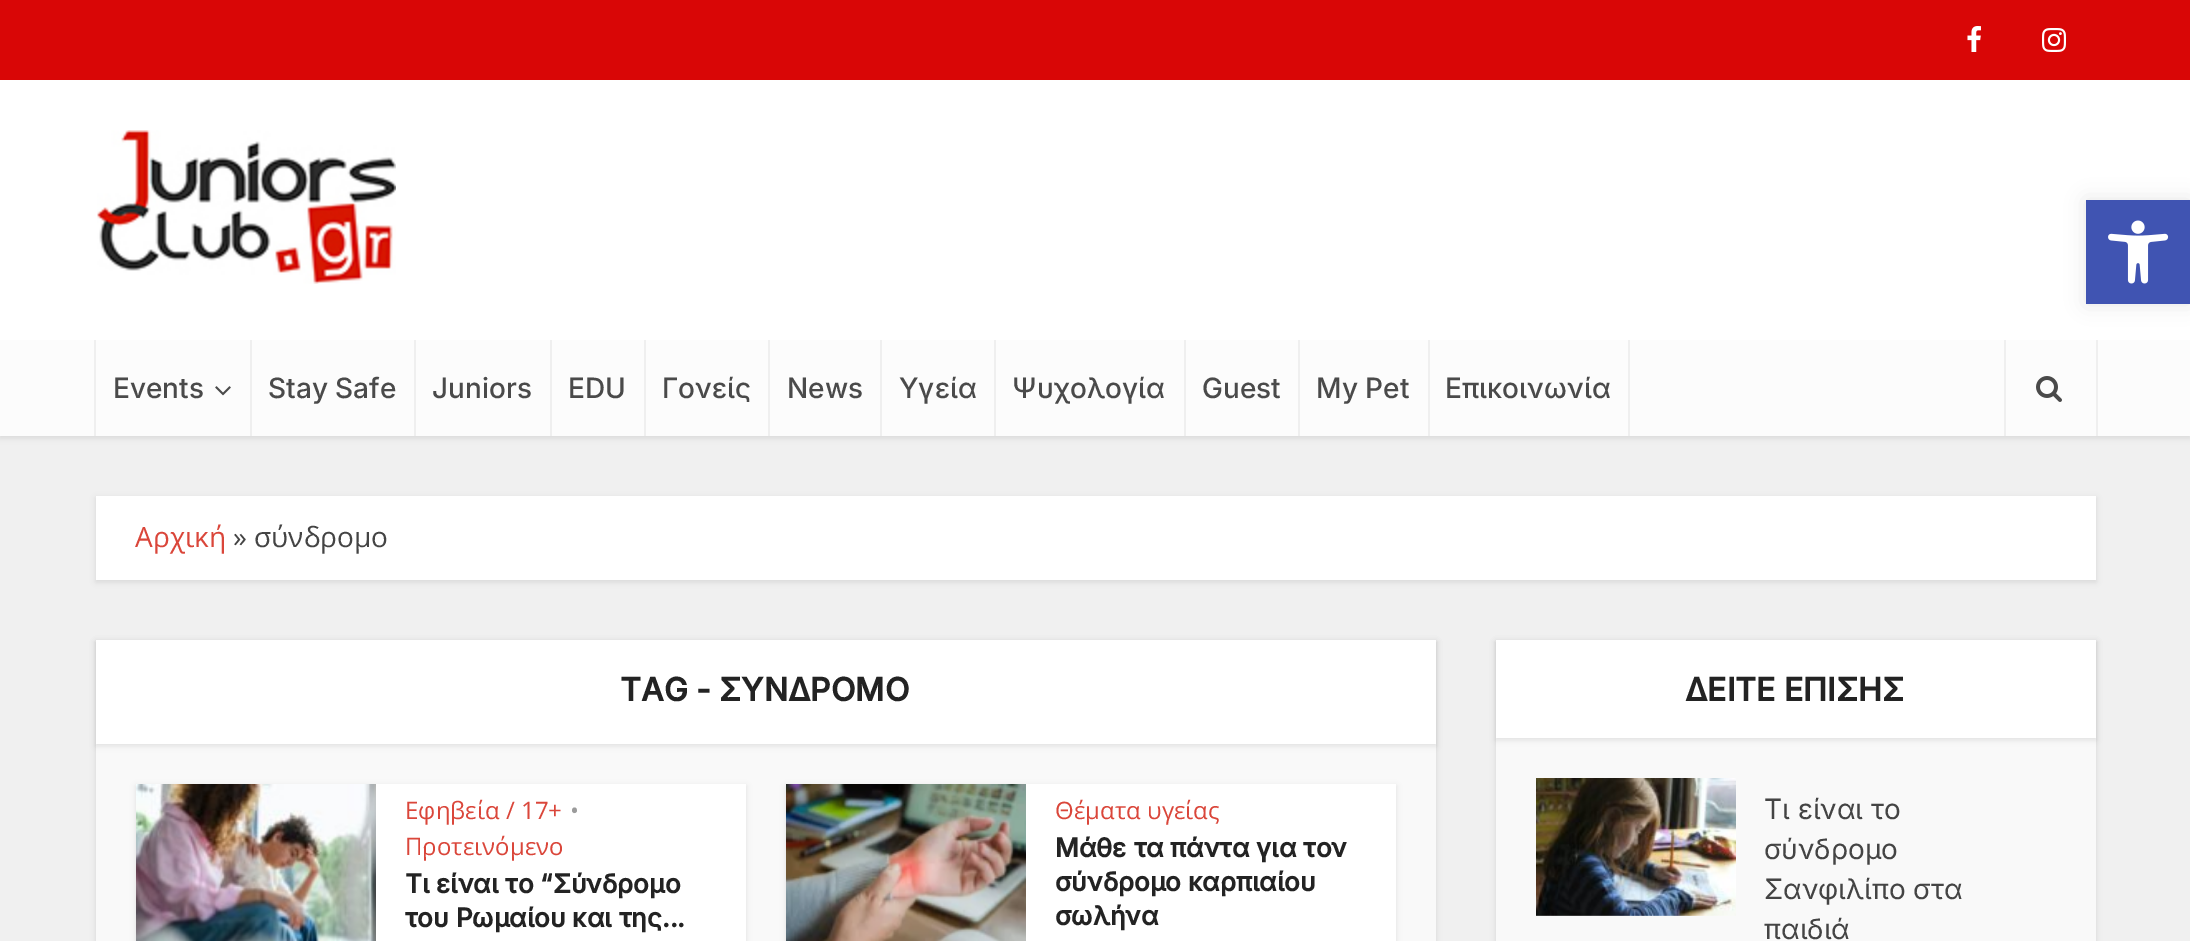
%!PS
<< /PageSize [2190 941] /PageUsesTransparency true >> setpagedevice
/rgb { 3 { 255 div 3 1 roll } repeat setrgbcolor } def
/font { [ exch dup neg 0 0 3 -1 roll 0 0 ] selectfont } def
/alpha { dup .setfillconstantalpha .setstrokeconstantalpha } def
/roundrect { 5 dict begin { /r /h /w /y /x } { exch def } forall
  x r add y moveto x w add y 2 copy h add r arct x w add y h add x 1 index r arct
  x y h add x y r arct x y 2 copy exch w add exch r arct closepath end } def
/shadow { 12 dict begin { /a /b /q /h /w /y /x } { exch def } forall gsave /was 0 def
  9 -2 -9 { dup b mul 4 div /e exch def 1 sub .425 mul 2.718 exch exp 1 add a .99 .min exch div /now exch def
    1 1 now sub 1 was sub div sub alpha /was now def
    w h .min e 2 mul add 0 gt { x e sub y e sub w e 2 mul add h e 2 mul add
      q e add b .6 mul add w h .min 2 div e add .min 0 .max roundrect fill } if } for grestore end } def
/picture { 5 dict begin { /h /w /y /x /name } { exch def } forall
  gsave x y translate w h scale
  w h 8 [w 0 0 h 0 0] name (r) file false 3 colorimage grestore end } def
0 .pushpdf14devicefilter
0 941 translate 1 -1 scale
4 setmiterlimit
240 240 240 rgb
0 0 2190 941 rectfill
0 0 0 rgb
0 2 2190 436 0 3 0.1 shadow
255 255 255 rgb
0 80 2190 260 rectfill
0 0 0 rgb
2086 200 104 104 0 10 0.1 shadow
64 84 178 rgb
2086 200 104 104 rectfill
(img/1.rgb) 2108 220 61 64 picture
217 6 6 rgb
0 0 2190 80 rectfill
(img/2.rgb) 1967 26 14 26 picture
(img/3.rgb) 2042 28 24 24 picture
(img/4.rgb) 97 130 299 154 picture
[
  [0 340 2190 96 252 252 252]
  [250 340 2 96 239 239 239]
  [94 340 2 96 239 239 239]
] { aload pop rgb rectfill } forall
(img/5.rgb) 215 386 16 10 picture
[
  [414 340 2 96 239 239 239]
  [550 340 2 96 239 239 239]
  [644 340 2 96 239 239 239]
  [768 340 2 96 239 239 239]
  [880 340 2 96 239 239 239]
  [994 340 2 96 239 239 239]
  [1184 340 2 96 239 239 239]
  [1298 340 2 96 239 239 239]
  [1428 340 2 96 239 239 239]
  [1628 340 2 96 239 239 239]
  [2096 340 2 96 239 239 239]
  [2004 340 2 96 239 239 239]
] { aload pop rgb rectfill } forall
(img/6.rgb) 2036 376 26 26 picture
0 0 0 rgb
96 498 2000 84 0 3 0.1 shadow
255 255 255 rgb
96 496 2000 84 rectfill
0 0 0 rgb
96 642 1340 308 0 3 0.1 shadow
249 249 249 rgb
96 744 1340 197 rectfill
0 0 0 rgb
96 642 1340 104 0 3 0.1 shadow
255 255 255 rgb
96 640 1340 104 rectfill
0 0 0 rgb
136 786 610 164 0 3 0.1 shadow
255 255 255 rgb
376 784 370 157 rectfill
(img/7.rgb) 136 784 240 157 picture
0 0 0 rgb
786 786 610 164 0 3 0.1 shadow
255 255 255 rgb
1026 784 370 157 rectfill
(img/8.rgb) 786 784 240 157 picture
0 0 0 rgb
1496 642 600 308 0 3 0.1 shadow
249 249 249 rgb
1496 738 600 203 rectfill
0 0 0 rgb
1496 642 600 98 0 3 0.1 shadow
255 255 255 rgb
1496 640 600 98 rectfill
(img/9.rgb) 1536 778 200 138 picture
/Inter-Medium 28 font
74 74 74 rgb
[
  [(Events) 113 398]
  [(Stay Safe) 268 398]
  [(Juniors) 432 398]
  [(EDU) 568 398]
  [(Γονείς) 662 398]
  [(News) 787 398]
  [(Υγεία) 899 398]
  [(Ψυχολογία) 1012 398]
  [(Guest) 1202 398]
  [(My Pet) 1316 398]
  [(Επικοινωνία) 1445 398]
] { aload pop moveto show } forall
/OpenSans-Regular 28 font
218 70 58 rgb
135 547 moveto (Αρχική) show
68 68 68 rgb
233 547 moveto (» σύνδρομο) show
/Inter-Bold 32 font
35 35 35 rgb
620 701 moveto (TAG - ΣΥΝΔΡΟΜΟ) show
/OpenSans-Regular 24 font
218 70 58 rgb
405 819 moveto (Εφηβεία / 17+) show
155 155 155 rgb
570 819 moveto (•) show
218 70 58 rgb
405 855 moveto (Προτεινόμενο) show
/Inter-Bold 26 font
35 35 35 rgb
405 893 moveto (Τι είναι το “Σύνδρομο) show
405 927 moveto (του Ρωμαίου και της...) show
/OpenSans-Regular 24 font
218 70 58 rgb
1055 819 moveto (Θέματα υγείας) show
/Inter-Bold 26 font
35 35 35 rgb
[
  [(Μάθε τα πάντα για τον) 1055 857]
  [(σύνδρομο καρπιαίου) 1055 891]
  [(σωλήνα) 1055 925]
] { aload pop moveto show } forall
/Inter-Bold 32 font
1685 701 moveto (ΔΕΙΤΕ ΕΠΙΣΗΣ) show
/Inter-Regular 28 font
68 68 68 rgb
[
  [(Τι είναι το) 1764 819]
  [(σύνδρομο) 1764 859]
  [(Σανφιλίπο στα) 1764 899]
  [(παιδιά) 1764 939]
] { aload pop moveto show } forall
.poppdf14devicefilter showpage
